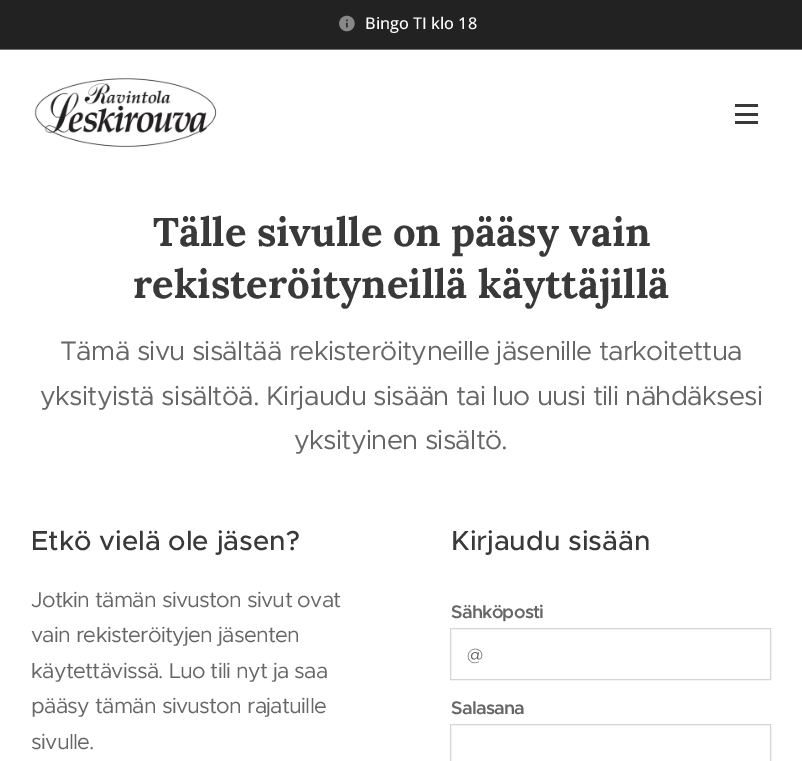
%!PS
<< /PageSize [802 761] >> setpagedevice
/rgb { 3 { 255 div 3 1 roll } repeat setrgbcolor } def
/font { [ exch dup neg 0 0 3 -1 roll 0 0 ] selectfont } def
/picture { 5 dict begin { /h /w /y /x /name } { exch def } forall
  gsave x y translate w h scale
  w h 8 [w 0 0 h 0 0] name (r) file false 3 colorimage grestore end } def
0 761 translate 1 -1 scale
4 setmiterlimit
255 255 255 rgb
0 0 802 761 rectfill
34 34 34 rgb
0 0 802 49 rectfill
(img/1.rgb) 339 15 16 17 picture
110 110 110 rgb
0 49 802 1 rectfill
(img/2.rgb) 34 78 183 70 picture
[
  [735 113 23 3 57 57 57]
  [735 104 23 3 57 57 57]
  [735 121 23 3 57 57 57]
] { aload pop rgb rectfill } forall
212 212 212 rgb
450.5 628.5 320 51 rectstroke
450.5 724.5 320 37 rectstroke
/OpenSans-Medium 16.25 font
255 255 255 rgb
365 29 moveto (Bingo TI klo 18) show
/Lora-Bold 40 font
57 57 57 rgb
153 246 moveto (Tälle sivulle on pääsy vain) show
133 298 moveto (rekisteröityneillä käyttäjillä) show
/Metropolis-Regular 27 font
102 102 102 rgb
60 360 moveto -0.68 0 (Tämä sivu sisältää rekisteröityneille jäsenille tarkoitettua) ashow
40 405 moveto -0.68 0 (yksityistä sisältöä. Kirjaudu sisään tai luo uusi tili nähdäksesi) ashow
294 449 moveto -0.68 0 (yksityinen sisältö.) ashow
/Metropolis-Medium 27.5 font
57 57 57 rgb
31 550 moveto (Etkö vielä ole jäsen?) show
/Metropolis-Regular 21.5 font
102 102 102 rgb
31 607 moveto -0.68 0 (Jotkin tämän sivuston sivut ovat) ashow
31 642 moveto -0.68 0 (vain rekisteröityjen jäsenten) ashow
31 678 moveto -0.68 0 (käytettävissä. Luo tili nyt ja saa) ashow
31 713 moveto -0.68 0 (pääsy tämän sivuston rajatuille) ashow
31 749 moveto -0.68 0 (sivulle.) ashow
/Metropolis-Medium 27.5 font
57 57 57 rgb
451 550 moveto (Kirjaudu sisään) show
/Metropolis-SemiBold 18.25 font
102 102 102 rgb
451 618 moveto -0.68 0 (Sähköposti) ashow
/Metropolis-Regular 18.25 font
467 661 moveto (@) show
/Metropolis-SemiBold 18.25 font
451 714 moveto -0.68 0 (Salasana) ashow
showpage
